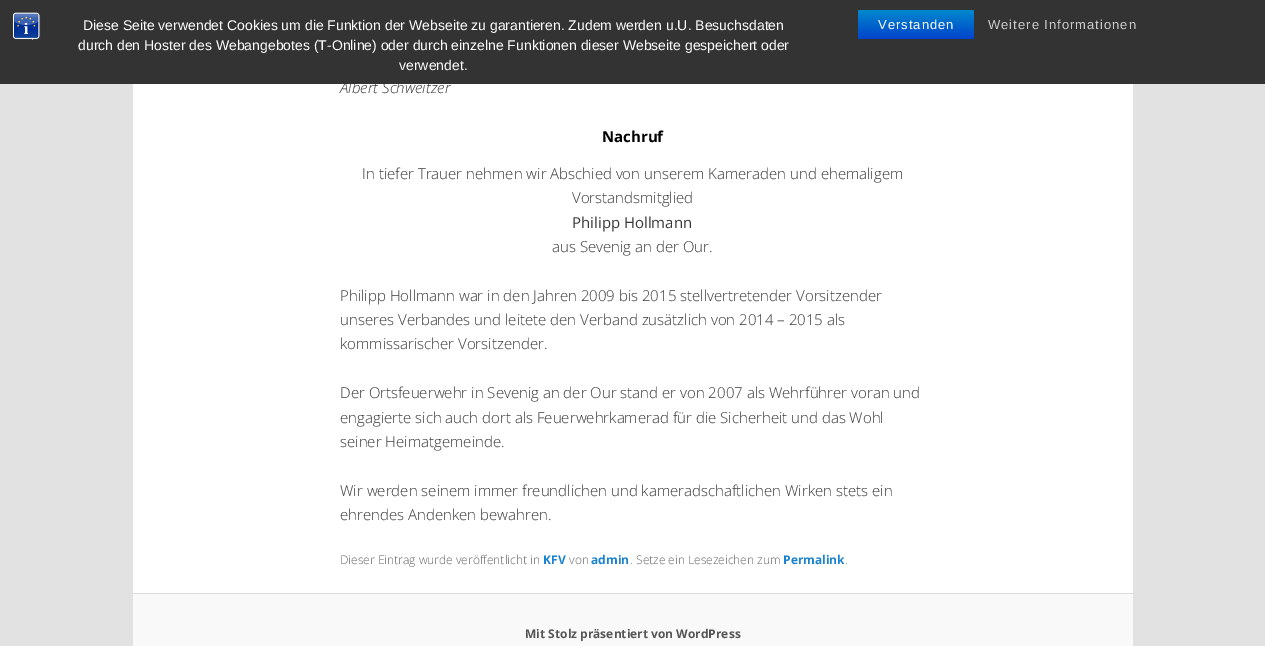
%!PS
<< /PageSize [1265 646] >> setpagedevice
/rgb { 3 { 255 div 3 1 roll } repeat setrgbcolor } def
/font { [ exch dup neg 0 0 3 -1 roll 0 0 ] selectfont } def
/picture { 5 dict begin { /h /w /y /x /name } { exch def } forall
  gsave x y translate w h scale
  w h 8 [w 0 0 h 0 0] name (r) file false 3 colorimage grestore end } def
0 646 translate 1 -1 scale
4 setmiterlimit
226 226 226 rgb
0 0 1265 646 rectfill
[
  [133 84 1000 509 255 255 255]
  [133 594 1000 52 249 249 249]
  [133 593 1000 1 221 221 221]
] { aload pop rgb rectfill } forall
/OpenSans-LightItalic 15 font
55 55 55 rgb
340 93 moveto (Albert Schweitzer) show
51 51 51 rgb
0 0 1265 84 rectfill
(img/1.rgb) 13 12 28 28 picture
/LiberationSans-Regular 13 font
204 204 204 rgb
988 29 moveto 1 0 (Weitere Informationen) ashow
gsave 858 10 moveto 974 10 lineto 974 39 lineto 858 39 lineto closepath clip newpath
<< /ShadingType 2 /ColorSpace /DeviceRGB /Coords [916 10 916 39] /Extend [true true] /Function << /FunctionType 2 /Domain [0 1] /C0 [0 0.533 0.8] /C1 [0 0.267 0.8] /N 1 >> >> shfill grestore
255 255 255 rgb
878 29 moveto 1 0 (Verstanden) ashow
/LiberationSans-Regular 14 font
[
  [(verwendet.) 399 70]
  [(durch den Hoster des Webangebotes \(T-Online\) oder durch einzelne Funktionen dieser Webseite gespeichert oder) 78 50]
  [(Diese Seite verwendet Cookies um die Funktion der Webseite zu garantieren. Zudem werden u.U. Besuchsdaten) 83 30]
] { aload pop moveto show } forall
/OpenSans-Bold 15 font
0 0 0 rgb
602 142 moveto (Nachruf) show
/OpenSans-Light 15 font
55 55 55 rgb
362 179 moveto (In tiefer Trauer nehmen wir Abschied von unserem Kameraden und ehemaligem) show
572 203 moveto (Vorstandsmitglied) show
/OpenSans-Regular 15 font
572 228 moveto (Philipp Hollmann) show
/OpenSans-Light 15 font
[
  [(aus Sevenig an der Our.) 552 252]
  [(Philipp Hollmann war in den Jahren 2009 bis 2015 stellvertretender Vorsitzender) 340 301]
  [(unseres Verbandes und leitete den Verband zusätzlich von 2014 – 2015 als) 340 325]
  [(kommissarischer Vorsitzender.) 340 349]
  [(Der Ortsfeuerwehr in Sevenig an der Our stand er von 2007 als Wehrführer voran und) 340 398]
  [(engagierte sich auch dort als Feuerwehrkamerad für die Sicherheit und das Wohl) 340 423]
  [(seiner Heimatgemeinde.) 340 447]
  [(Wir werden seinem immer freundlichen und kameradschaftlichen Wirken stets ein) 340 496]
  [(ehrendes Andenken bewahren.) 340 520]
] { aload pop moveto show } forall
/OpenSans-Light 12 font
102 102 102 rgb
340 564 moveto (Dieser Eintrag wurde veröffentlicht in) show
/OpenSans-Bold 12 font
25 130 209 rgb
543 564 moveto (KFV) show
/OpenSans-Light 12 font
102 102 102 rgb
569 564 moveto (von) show
/OpenSans-Bold 12 font
25 130 209 rgb
591 564 moveto (admin) show
/OpenSans-Light 12 font
102 102 102 rgb
630 564 moveto (. Setze ein Lesezeichen zum) show
/OpenSans-Bold 12 font
25 130 209 rgb
783 564 moveto (Permalink) show
/OpenSans-Light 12 font
102 102 102 rgb
845 564 moveto (.) show
/OpenSans-Bold 12 font
85 85 85 rgb
525 638 moveto (Mit Stolz präsentiert von WordPress) show
showpage
